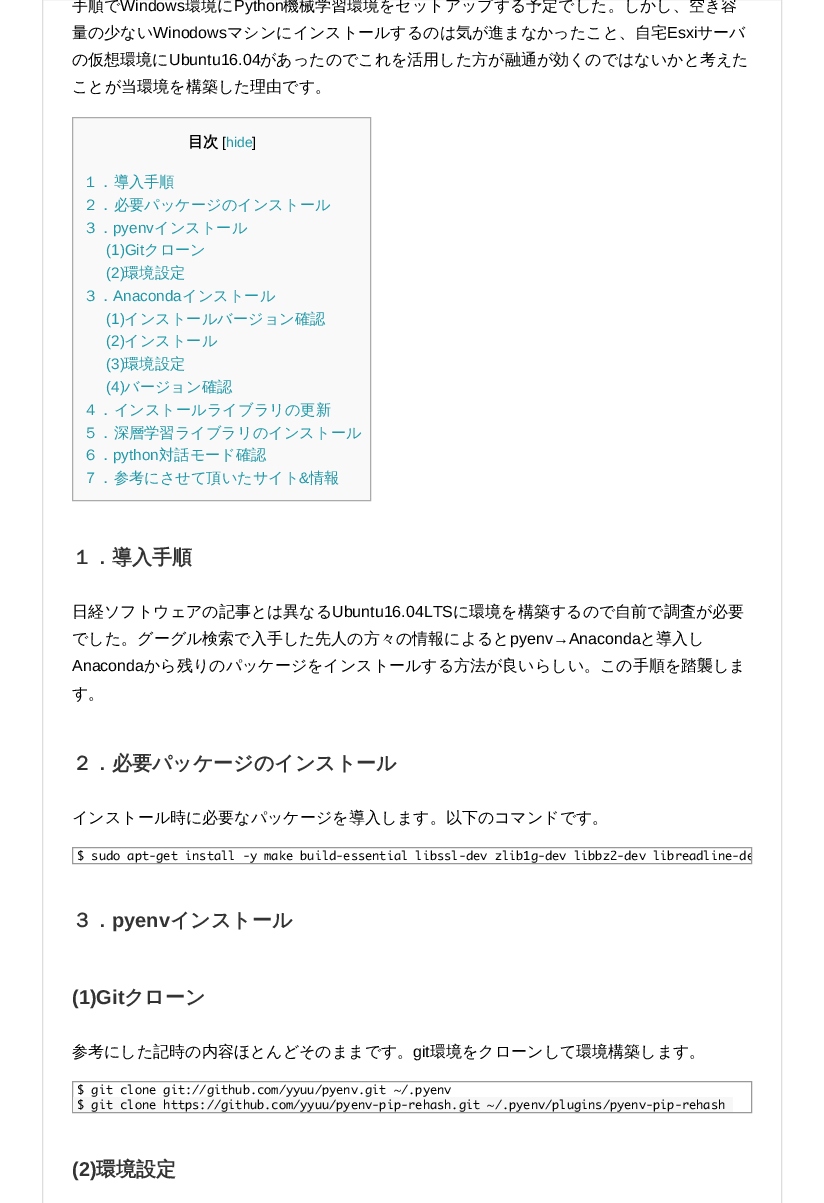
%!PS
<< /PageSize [824 1203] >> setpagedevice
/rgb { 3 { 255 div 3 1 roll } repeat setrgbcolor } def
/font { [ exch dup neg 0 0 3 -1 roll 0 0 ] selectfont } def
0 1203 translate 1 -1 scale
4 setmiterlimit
255 255 255 rgb
0 0 824 1203 rectfill
221 221 221 rgb
42.5 -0.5 739 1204 rectstroke
249 249 249 rgb
72.5 117.5 moveto 370.5 117.5 lineto 370.5 500.5 lineto 72.5 500.5 lineto closepath gsave fill grestore
170 170 170 rgb
stroke
153 153 153 rgb
72.5 847.5 679 16 rectstroke
72.5 1081.5 679 31 rectstroke
247 247 247 rgb
73 1097 660 15 rectfill
/WenQuanYiZenHei-Medium 16 font
0 0 0 rgb
72 11 moveto (手順で) show
/LiberationSans-Regular 16 font
120 11 moveto (Windows) show
/WenQuanYiZenHei-Medium 16 font
185 11 moveto (環境に) show
/LiberationSans-Regular 16 font
234 11 moveto (Python) show
/WenQuanYiZenHei-Medium 16 font
283 11 moveto (機械学習環境をセットアップする予定でした。しかし、空き容) show
72 38 moveto (量の少ない) show
/LiberationSans-Regular 16 font
153 38 moveto (Winodows) show
/WenQuanYiZenHei-Medium 16 font
227 38 moveto (マシンにインストールするのは気が進まなかったこと、自宅) show
/LiberationSans-Regular 16 font
667 38 moveto (Esxi) show
/WenQuanYiZenHei-Medium 16 font
697 38 moveto (サーバ) show
72 65 moveto (の仮想環境に) show
/LiberationSans-Regular 16 font
169 65 moveto (Ubuntu16.04) show
/WenQuanYiZenHei-Medium 16 font
260 65 moveto (があったのでこれを活用した方が融通が効くのではないかと考えた) show
72 92 moveto (ことが当環境を構築した理由です。) show
/WenQuanYiZenHei-Bold 15.25 font
188 147 moveto (目次) show
/LiberationSans-Regular 14 font
222 147 moveto ([) show
32 152 168 rgb
226 147 moveto (hide) show
0 0 0 rgb
252 147 moveto (]) show
/WenQuanYiZenHei-Medium 15.25 font
32 152 168 rgb
[
  [(１．導入手順) 83 187]
  [(２．必要パッケージのインストール) 83 210]
  [(３．) 83 233]
] { aload pop moveto show } forall
/LiberationSans-Regular 15.25 font
113 233 moveto (pyenv) show
/WenQuanYiZenHei-Medium 15.25 font
154 233 moveto (インストール) show
/LiberationSans-Regular 15.25 font
106 255 moveto (\(1\)Git) show
/WenQuanYiZenHei-Medium 15.25 font
144 255 moveto (クローン) show
/LiberationSans-Regular 15.25 font
106 278 moveto (\(2\)) show
/WenQuanYiZenHei-Medium 15.25 font
124 278 moveto (環境設定) show
83 301 moveto (３．) show
/LiberationSans-Regular 15.25 font
113 301 moveto (Anaconda) show
/WenQuanYiZenHei-Medium 15.25 font
182 301 moveto (インストール) show
/LiberationSans-Regular 15.25 font
106 324 moveto (\(1\)) show
/WenQuanYiZenHei-Medium 15.25 font
124 324 moveto (インストールバージョン確認) show
/LiberationSans-Regular 15.25 font
106 346 moveto (\(2\)) show
/WenQuanYiZenHei-Medium 15.25 font
124 346 moveto (インストール) show
/LiberationSans-Regular 15.25 font
106 369 moveto (\(3\)) show
/WenQuanYiZenHei-Medium 15.25 font
124 369 moveto (環境設定) show
/LiberationSans-Regular 15.25 font
106 392 moveto (\(4\)) show
/WenQuanYiZenHei-Medium 15.25 font
[
  [(バージョン確認) 124 392]
  [(４．インストールライブラリの更新) 83 415]
  [(５．深層学習ライブラリのインストール) 83 438]
  [(６．) 83 460]
] { aload pop moveto show } forall
/LiberationSans-Regular 15.25 font
113 460 moveto (python) show
/WenQuanYiZenHei-Medium 15.25 font
159 460 moveto (対話モード確認) show
83 483 moveto (７．参考にさせて頂いたサイト) show
/LiberationSans-Regular 15.25 font
299 483 moveto (&) show
/WenQuanYiZenHei-Medium 15.25 font
309 483 moveto (情報) show
/WenQuanYiZenHei-Bold 20 font
51 51 51 rgb
72 564 moveto (１．導入手順) show
/WenQuanYiZenHei-Medium 16 font
0 0 0 rgb
72 617 moveto (日経ソフトウェアの記事とは異なる) show
/LiberationSans-Regular 16 font
332 617 moveto (Ubuntu16.04LTS) show
/WenQuanYiZenHei-Medium 16 font
453 617 moveto (に環境を構築するので自前で調査が必要) show
72 644 moveto (でした。グーグル検索で入手した先人の方々の情報によると) show
/LiberationSans-Regular 16 font
510 644 moveto (pyenv→Anaconda) show
/WenQuanYiZenHei-Medium 16 font
640 644 moveto (と導入し) show
/LiberationSans-Regular 16 font
72 671 moveto (Anaconda) show
/WenQuanYiZenHei-Medium 16 font
144 671 moveto (から残りのパッケージをインストールする方法が良いらしい。この手順を踏襲しま) show
72 699 moveto (す。) show
/WenQuanYiZenHei-Bold 20 font
51 51 51 rgb
72 770 moveto (２．必要パッケージのインストール) show
/WenQuanYiZenHei-Medium 16 font
0 0 0 rgb
72 823 moveto (インストール時に必要なパッケージを導入します。以下のコマンドです。) show
gsave
73 848 678 15 rectclip
/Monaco-Regular 12 font
77 860 moveto ($ sudo apt-get install -y make build-essential libssl-dev zlib1g-dev libbz2-dev libreadline-de) show
grestore
/WenQuanYiZenHei-Bold 20 font
51 51 51 rgb
72 927 moveto (３．) show
/LiberationSans-Bold 20 font
112 927 moveto (pyenv) show
/WenQuanYiZenHei-Bold 20 font
170 927 moveto (インストール) show
/LiberationSans-Bold 20 font
72 1004 moveto (\(1\)Git) show
/WenQuanYiZenHei-Bold 20 font
124 1004 moveto (クローン) show
/WenQuanYiZenHei-Medium 16 font
0 0 0 rgb
72 1057 moveto (参考にした記時の内容ほとんどそのままです。) show
/LiberationSans-Regular 16 font
413 1057 moveto (git) show
/WenQuanYiZenHei-Medium 16 font
430 1057 moveto (環境をクローンして環境構築します。) show
/Monaco-Regular 12 font
77 1094 moveto ($ git clone git://github.com/yyuu/pyenv.git ~/.pyenv) show
77 1109 moveto ($ git clone https://github.com/yyuu/pyenv-pip-rehash.git ~/.pyenv/plugins/pyenv-pip-rehash) show
/LiberationSans-Bold 20 font
51 51 51 rgb
72 1176 moveto (\(2\)) show
/WenQuanYiZenHei-Bold 20 font
96 1176 moveto (環境設定) show
showpage
